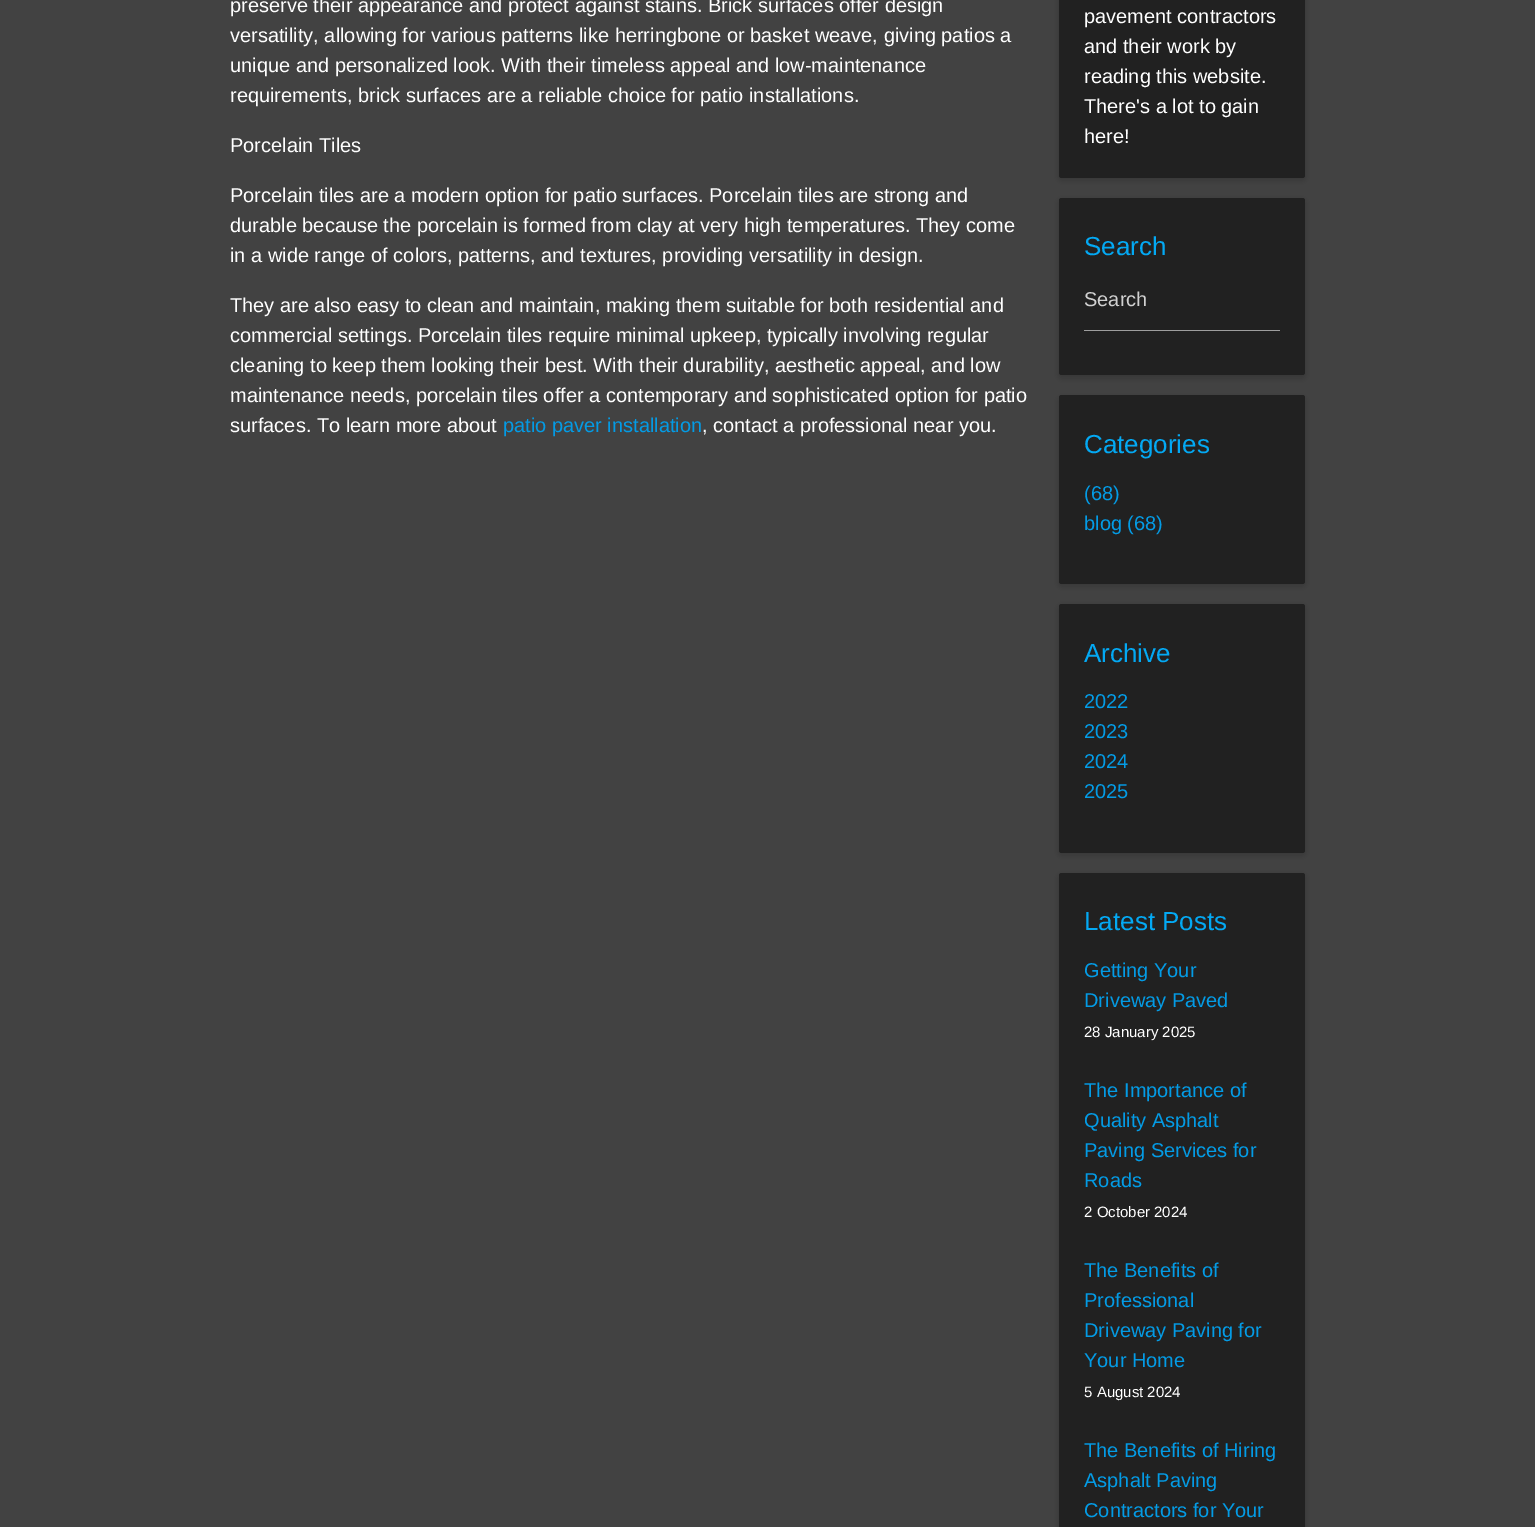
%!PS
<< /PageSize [1535 1527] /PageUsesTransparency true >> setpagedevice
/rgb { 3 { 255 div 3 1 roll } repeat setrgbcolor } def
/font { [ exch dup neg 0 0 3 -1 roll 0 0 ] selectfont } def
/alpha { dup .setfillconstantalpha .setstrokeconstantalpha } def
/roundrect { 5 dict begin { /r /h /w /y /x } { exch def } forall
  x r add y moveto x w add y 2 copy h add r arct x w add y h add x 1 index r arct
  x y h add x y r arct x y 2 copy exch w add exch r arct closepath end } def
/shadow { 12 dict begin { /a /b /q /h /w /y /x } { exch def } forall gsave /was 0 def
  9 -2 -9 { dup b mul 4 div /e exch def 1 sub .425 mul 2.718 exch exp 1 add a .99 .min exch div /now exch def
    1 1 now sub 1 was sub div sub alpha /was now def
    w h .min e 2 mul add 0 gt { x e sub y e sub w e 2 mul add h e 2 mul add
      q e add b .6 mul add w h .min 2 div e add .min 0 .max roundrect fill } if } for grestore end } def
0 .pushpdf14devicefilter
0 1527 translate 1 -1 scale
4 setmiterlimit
66 66 66 rgb
0 0 1535 1527 rectfill
0 0 0 rgb
1059 -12 246 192 2.5 3 0.16 shadow
33 33 33 rgb
1059 -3 246 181 2.5 roundrect fill
0 0 0 rgb
1059 200 246 178 2.5 3 0.16 shadow
33 33 33 rgb
1059 198 246 177 2.5 roundrect fill
158 158 158 rgb
1084 330 196 1 rectfill
0 0 0 rgb
1059 398 246 188 2.5 3 0.16 shadow
33 33 33 rgb
1059 395 246 189 2.5 roundrect fill
0 0 0 rgb
1059 606 246 249 2.5 3 0.16 shadow
33 33 33 rgb
1059 604 246 249 2.5 roundrect fill
0 0 0 rgb
1059 875 246 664 2.5 3 0.16 shadow
33 33 33 rgb
1059 873 246 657 2.5 roundrect fill
/LiberationSans-Regular 20 font
255 255 255 rgb
[
  [(preserve their appearance and protect against stains. Brick surfaces offer design) 230 12]
  [(versatility, allowing for various patterns like herringbone or basket weave, giving patios a) 230 42]
  [(unique and personalized look. With their timeless appeal and low-maintenance) 230 72]
  [(requirements, brick surfaces are a reliable choice for patio installations.) 230 102]
  [(Porcelain Tiles) 230 152]
  [(Porcelain tiles are a modern option for patio surfaces. Porcelain tiles are strong and) 230 202]
  [(durable because the porcelain is formed from clay at very high temperatures. They come) 230 232]
  [(in a wide range of colors, patterns, and textures, providing versatility in design.) 230 262]
  [(They are also easy to clean and maintain, making them suitable for both residential and) 230 312]
  [(commercial settings. Porcelain tiles require minimal upkeep, typically involving regular) 230 342]
  [(cleaning to keep them looking their best. With their durability, aesthetic appeal, and low) 230 372]
  [(maintenance needs, porcelain tiles offer a contemporary and sophisticated option for patio) 230 402]
  [(surfaces. To learn more about) 230 432]
] { aload pop moveto show } forall
3 155 229 rgb
503 432 moveto (patio paver installation) show
255 255 255 rgb
[
  [(, contact a professional near you.) 702 432]
  [(pavement contractors) 1084 23]
  [(and their work by) 1084 53]
  [(reading this website.) 1084 83]
  [(There's a lot to gain) 1084 113]
  [(here!) 1084 143]
] { aload pop moveto show } forall
/LiberationSans-Regular 26 font
3 169 244 rgb
1084 255 moveto (Search) show
/LiberationSans-Regular 20 font
209 209 209 rgb
1084 306 moveto (Search) show
/LiberationSans-Regular 26 font
3 169 244 rgb
1084 453 moveto (Categories) show
/LiberationSans-Regular 20 font
3 155 229 rgb
1084 500 moveto (\(68\)) show
1084 530 moveto (blog \(68\)) show
/LiberationSans-Regular 26 font
3 169 244 rgb
1084 662 moveto (Archive) show
/LiberationSans-Regular 20 font
3 155 229 rgb
[
  [(2022) 1084 708]
  [(2023) 1084 738]
  [(2024) 1084 768]
  [(2025) 1084 798]
] { aload pop moveto show } forall
/LiberationSans-Regular 26 font
3 169 244 rgb
1084 930 moveto (Latest Posts) show
/LiberationSans-Regular 20 font
3 155 229 rgb
1084 977 moveto (Getting Your) show
1084 1007 moveto (Driveway Paved) show
/LiberationSans-Regular 15 font
255 255 255 rgb
1084 1037 moveto (28 January 2025) show
/LiberationSans-Regular 20 font
3 155 229 rgb
[
  [(The Importance of) 1084 1097]
  [(Quality Asphalt) 1084 1127]
  [(Paving Services for) 1084 1157]
  [(Roads) 1084 1187]
] { aload pop moveto show } forall
/LiberationSans-Regular 15 font
255 255 255 rgb
1084 1217 moveto (2 October 2024) show
/LiberationSans-Regular 20 font
3 155 229 rgb
[
  [(The Benefits of) 1084 1277]
  [(Professional) 1084 1307]
  [(Driveway Paving for) 1084 1337]
  [(Your Home) 1084 1367]
] { aload pop moveto show } forall
/LiberationSans-Regular 15 font
255 255 255 rgb
1084 1397 moveto (5 August 2024) show
/LiberationSans-Regular 20 font
3 155 229 rgb
[
  [(The Benefits of Hiring) 1084 1457]
  [(Asphalt Paving) 1084 1487]
  [(Contractors for Your) 1084 1517]
] { aload pop moveto show } forall
.poppdf14devicefilter showpage
